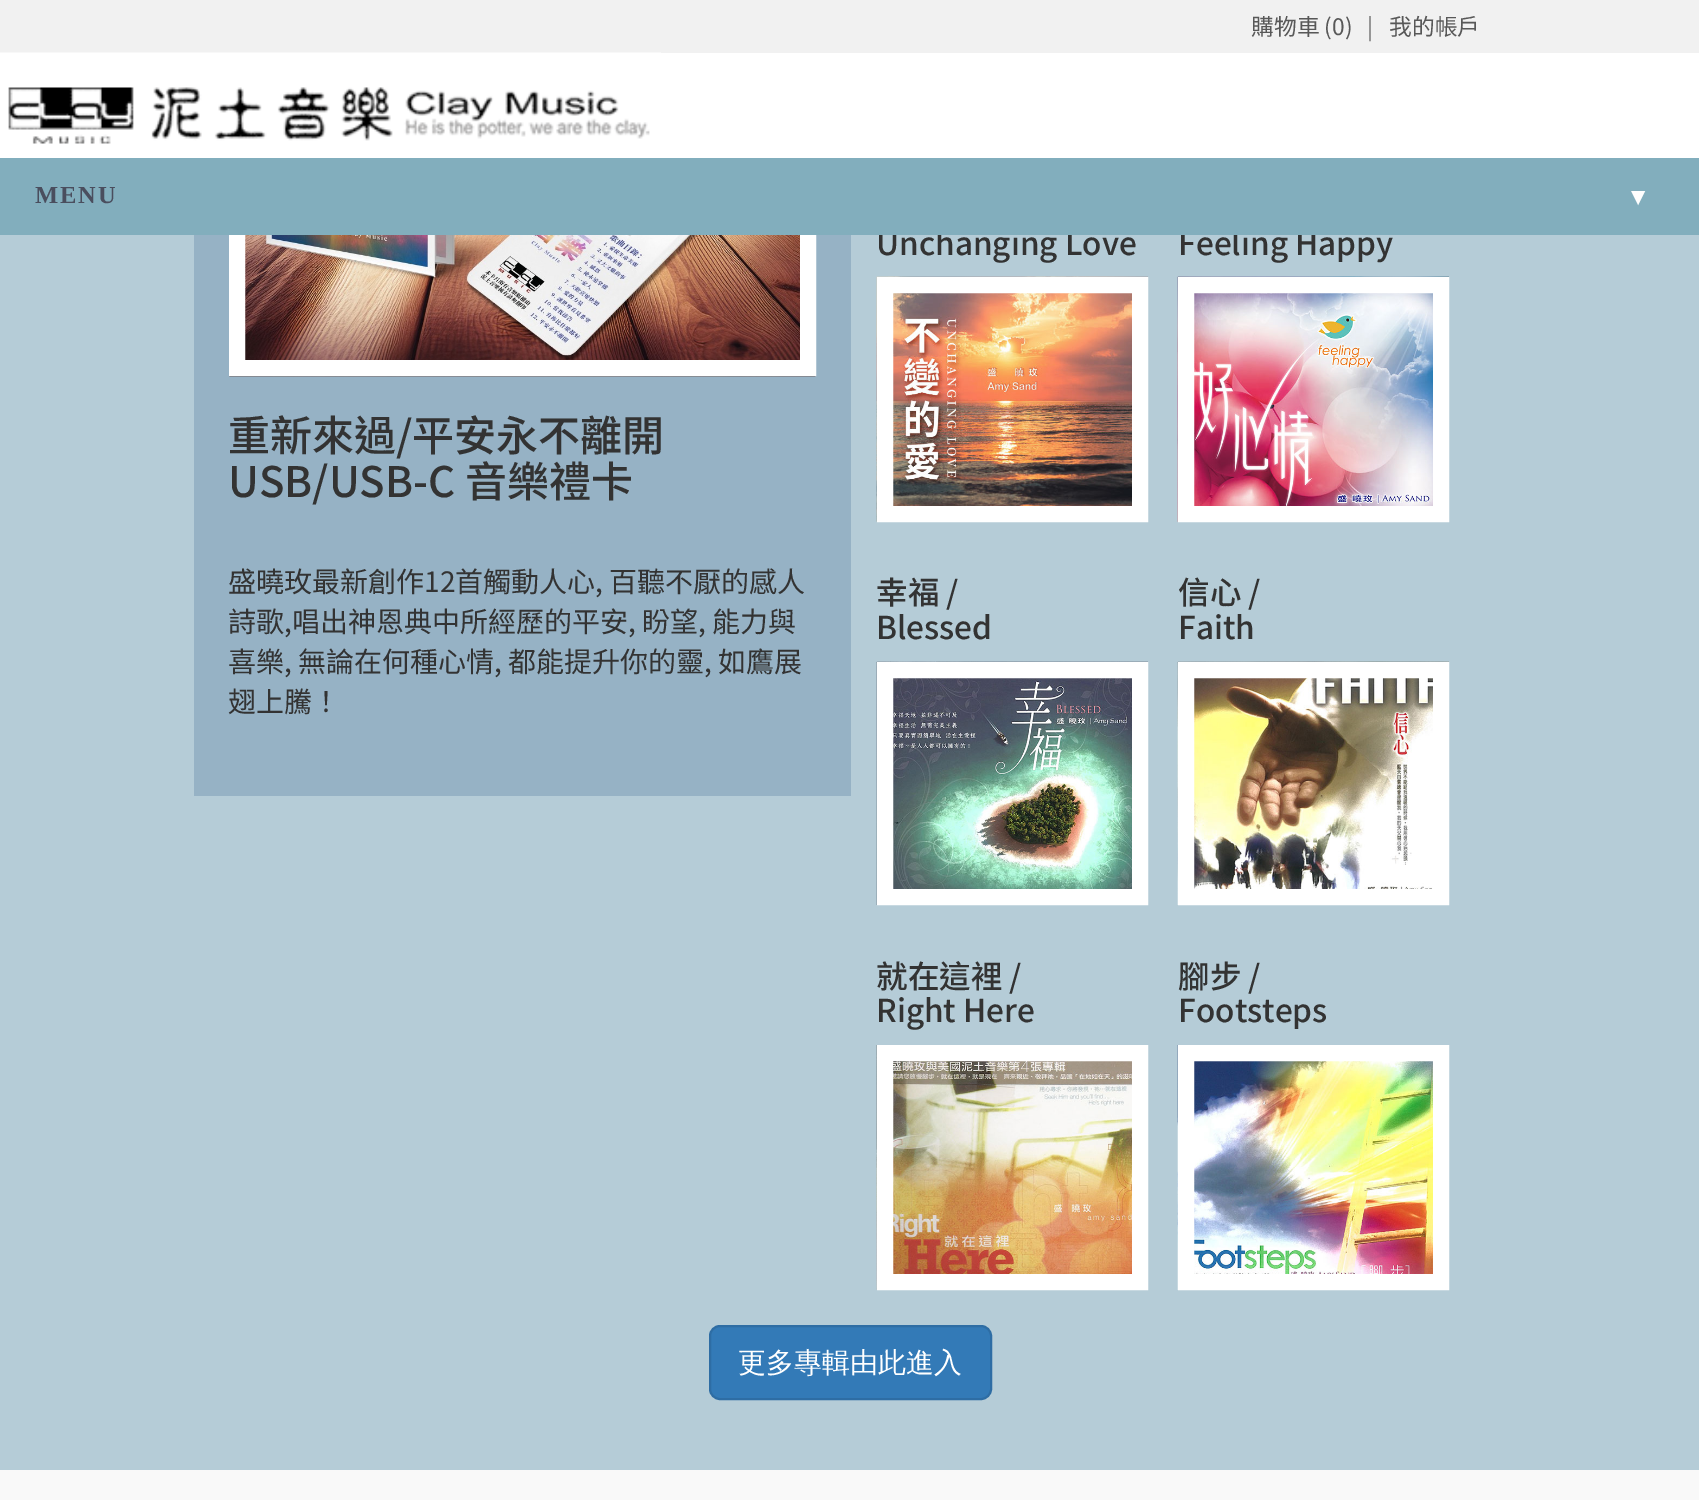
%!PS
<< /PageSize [1699 1500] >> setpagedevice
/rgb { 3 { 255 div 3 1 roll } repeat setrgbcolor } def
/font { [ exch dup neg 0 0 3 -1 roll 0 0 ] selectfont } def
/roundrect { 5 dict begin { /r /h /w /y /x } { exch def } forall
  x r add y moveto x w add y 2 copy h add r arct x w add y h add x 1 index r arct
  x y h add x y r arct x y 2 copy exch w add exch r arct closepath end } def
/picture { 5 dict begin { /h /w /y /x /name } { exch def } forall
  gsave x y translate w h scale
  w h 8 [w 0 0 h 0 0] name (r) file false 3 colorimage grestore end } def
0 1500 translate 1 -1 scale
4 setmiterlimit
181 204 215 rgb
0 0 1699 1500 rectfill
150 178 197 rgb
194 235 657 561 rectfill
(img/2.rgb) 229 235 587 142 picture
255 255 255 rgb
16 setlinewidth
237 -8 571 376 rectstroke
241 241 241 rgb
0 0 1699 53 rectfill
255 255 255 rgb
0 53 1699 105 rectfill
(img/1.rgb) 0 52 661 92 picture
(img/3.rgb) 876 276 272 246 picture
885 285 255 229 rectstroke
(img/4.rgb) 1177 276 272 246 picture
1186 285 255 229 rectstroke
(img/5.rgb) 876 661 272 244 picture
885 670 255 227 rectstroke
(img/6.rgb) 1177 661 272 244 picture
1186 670 255 227 rectstroke
(img/7.rgb) 876 1045 256 245 picture
885 1053 255 229 rectstroke
(img/8.rgb) 1177 1045 256 245 picture
1186 1053 255 229 rectstroke
51 122 183 rgb
710 1326 281 73 10 roundrect gsave fill grestore
46 109 164 rgb
2 setlinewidth
stroke
249 249 249 rgb
0 1470 1699 30 rectfill
/NotoSansTC-Regular 22.75 font
88 88 88 rgb
1251 35 moveto (購物車 \(0\)) show
119 119 119 rgb
1367 35 moveto (|) show
88 88 88 rgb
1389 35 moveto (我的帳戶) show
/NotoSansTC-Medium 42 font
51 51 51 rgb
228 451 moveto (重新來過/平安永不離開) show
228 497 moveto (USB/USB-C 音樂禮卡) show
/NotoSansTC-Regular 28 font
[
  [(盛曉玫最新創作12首觸動人心, 百聽不厭的感人) 228 592]
  [(詩歌,唱出神恩典中所經歷的平安, 盼望, 能力與) 228 632]
  [(喜樂, 無論在何種心情, 都能提升你的靈, 如鷹展) 228 672]
  [(翅上騰！) 228 712]
] { aload pop moveto show } forall
/NotoSansTC-Medium 31.5 font
876 255 moveto (Unchanging Love) show
1178 255 moveto (Feeling Happy) show
130 174 189 rgb
0 158 1699 77 rectfill
/LiberationSerif-Bold 24.5 font
255 255 255 rgb
1626 205 moveto 2 0 (▼) ashow
74 78 94 rgb
35 203 moveto 2 0 (MENU) ashow
/NotoSansTC-Medium 31.5 font
51 51 51 rgb
[
  [(幸福 /) 876 604]
  [(Blessed) 876 639]
  [(信心 /) 1178 604]
  [(Faith) 1178 639]
  [(就在這裡 /) 876 988]
  [(Right Here) 876 1022]
  [(腳步 /) 1178 988]
  [(Footsteps) 1178 1022]
] { aload pop moveto show } forall
/WenQuanYiZenHei-Medium 28 font
255 255 255 rgb
738 1372 moveto (更多專輯由此進入) show
showpage
